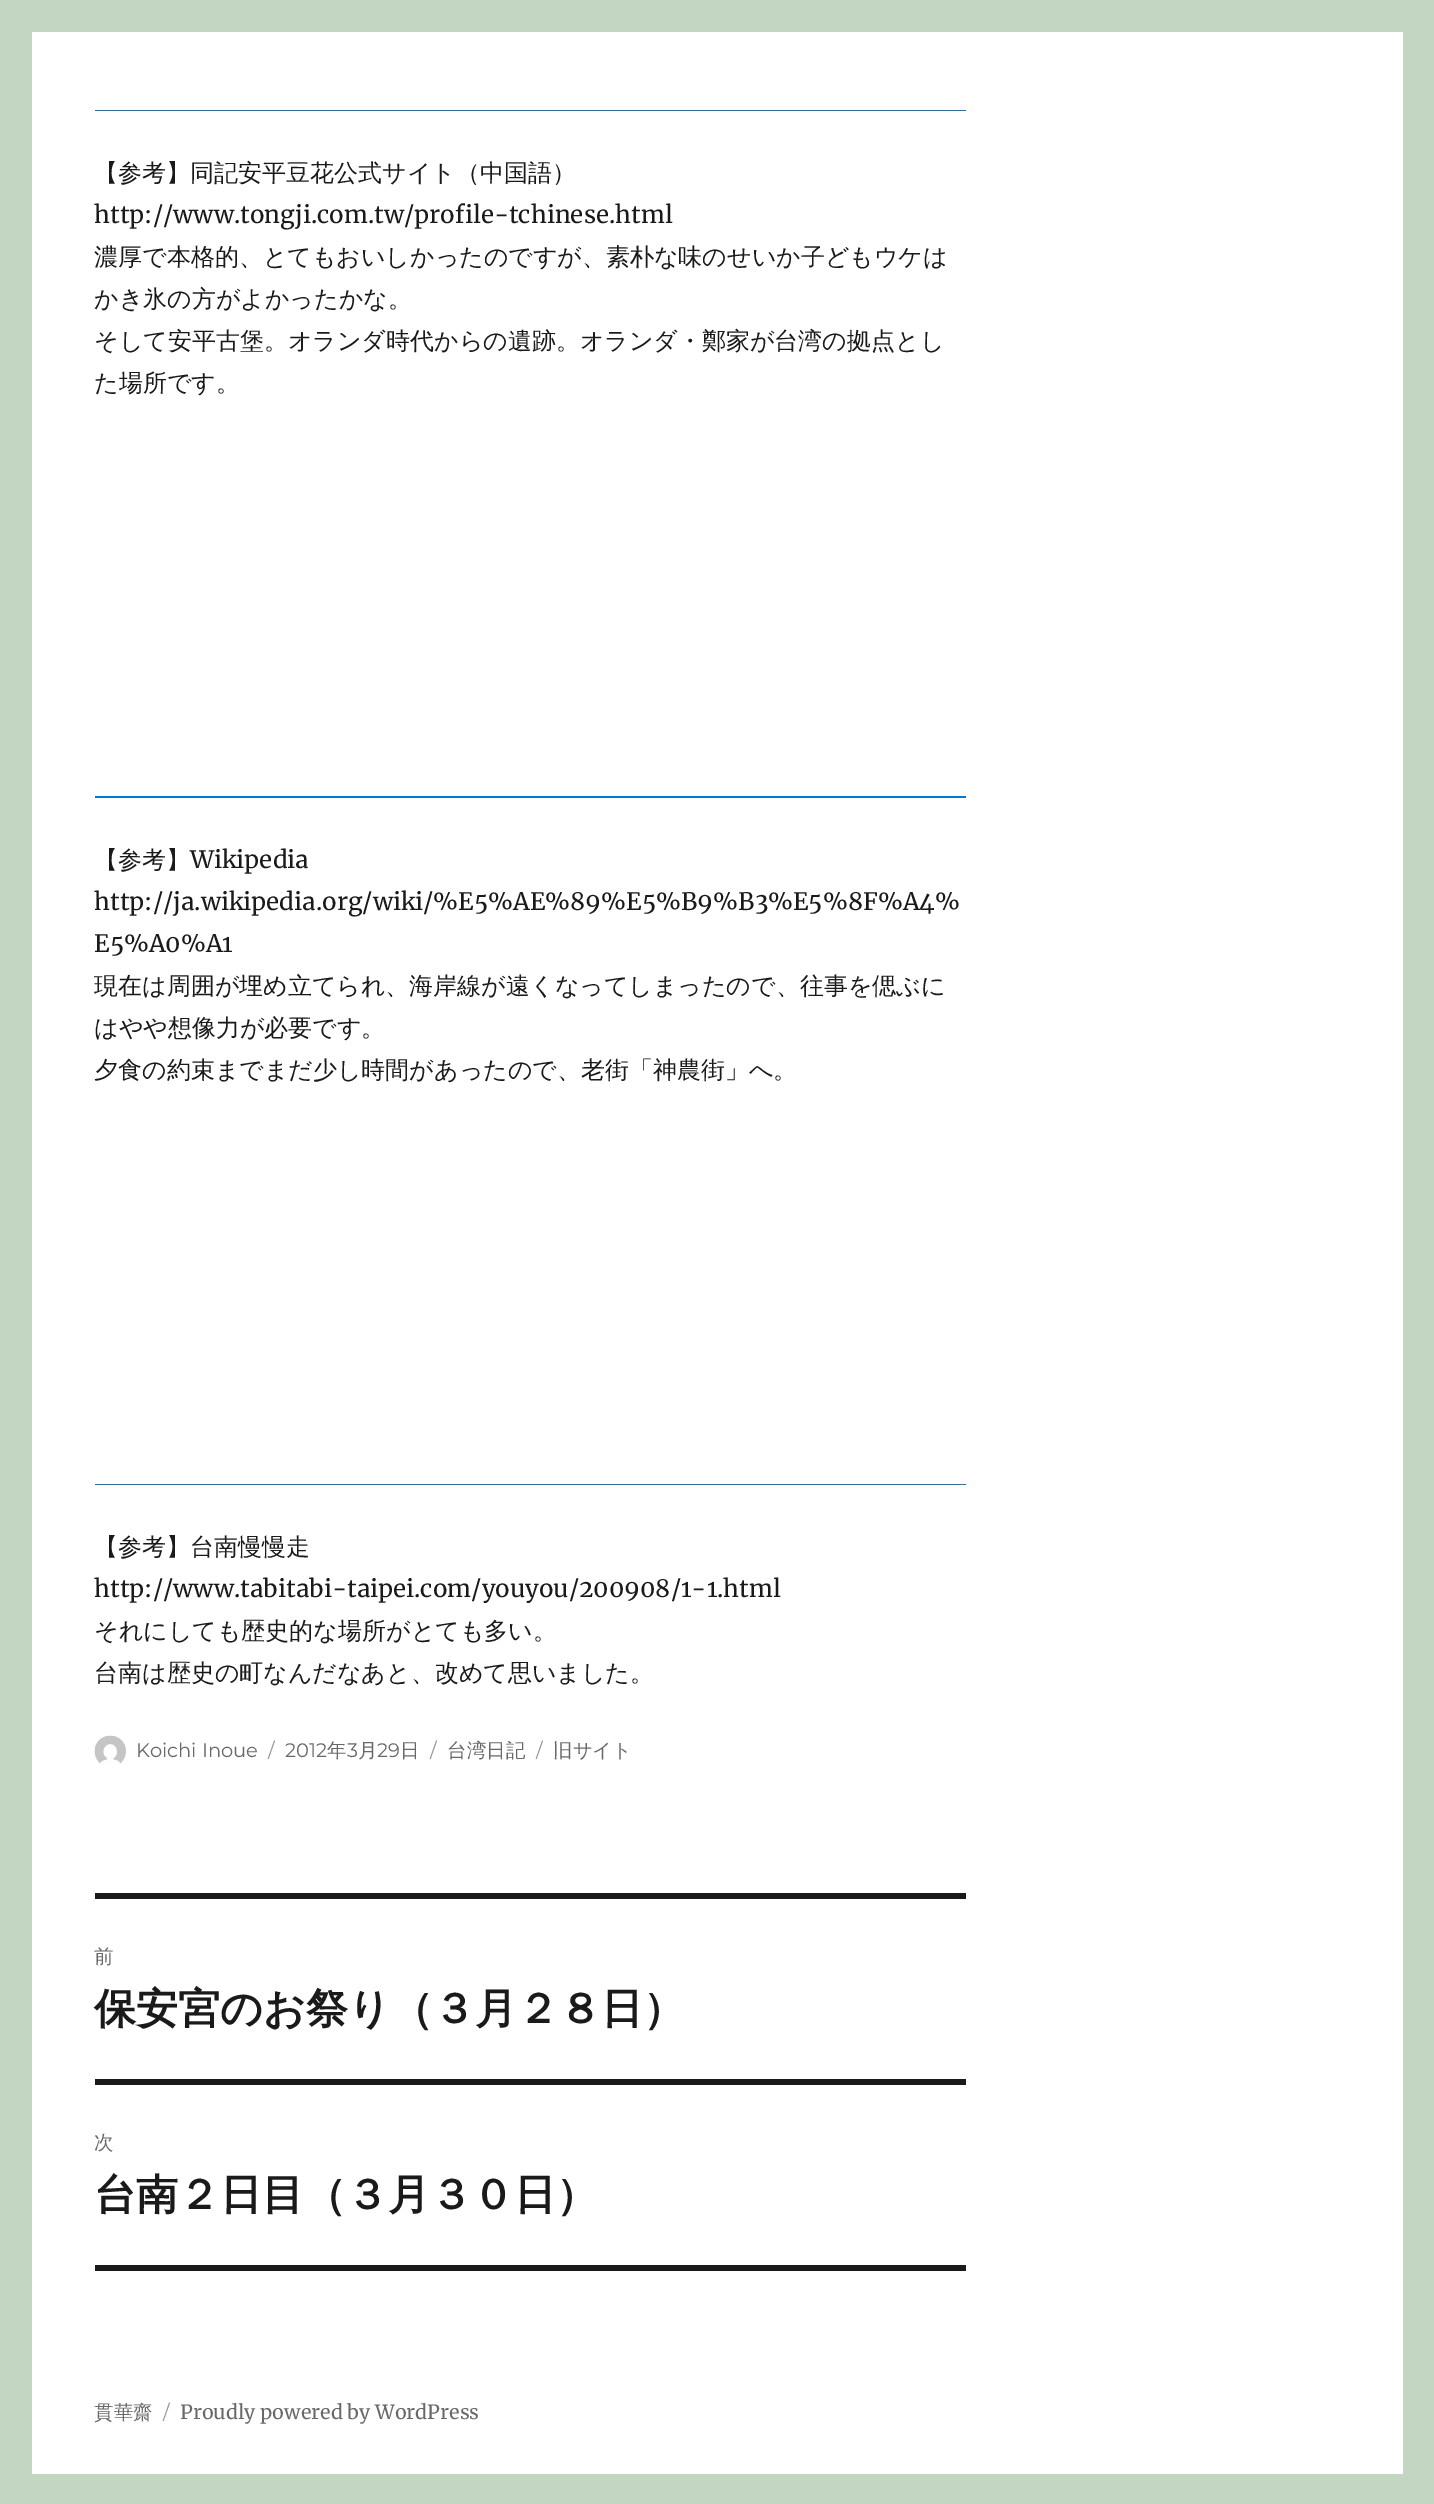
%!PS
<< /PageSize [1434 2504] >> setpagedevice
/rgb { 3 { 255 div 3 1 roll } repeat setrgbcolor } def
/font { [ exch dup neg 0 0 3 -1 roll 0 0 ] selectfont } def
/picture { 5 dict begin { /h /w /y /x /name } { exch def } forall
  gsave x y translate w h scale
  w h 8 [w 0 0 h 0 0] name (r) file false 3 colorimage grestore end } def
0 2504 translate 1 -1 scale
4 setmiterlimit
194 214 194 rgb
0 0 1434 2504 rectfill
[
  [32 32 1371 2442 255 255 255]
  [95 110 871 1 0 122 204]
  [95 796 871 2 0 122 204]
  [95 1484 871 1 0 122 204]
] { aload pop rgb rectfill } forall
(img/1.rgb) 94 1735 32 29 picture
[
  [95 1893 871 6 26 26 26]
  [95 2265 871 6 26 26 26]
  [95 2079 871 6 26 26 26]
] { aload pop rgb rectfill } forall
/WenQuanYiZenHei-Medium 24 font
94 181 moveto (【参考】同記安平豆花公式サイト（中国語）) show
/Merriweather-Regular 24 font
94 223 moveto (http://www.tongji.com.tw/profile-tchinese.html) show
/WenQuanYiZenHei-Medium 24 font
[
  [(濃厚で本格的、とてもおいしかったのですが、素朴な味のせいか子どもウケは) 94 265]
  [(かき氷の方がよかったかな。) 94 307]
  [(そして安平古堡。オランダ時代からの遺跡。オランダ・鄭家が台湾の拠点とし) 94 349]
  [(た場所です。) 94 391]
  [(【参考】) 94 868]
] { aload pop moveto show } forall
/Merriweather-Regular 24 font
[
  [(Wikipedia) 190 868]
  [(http://ja.wikipedia.org/wiki/%E5%AE%89%E5%B9%B3%E5%8F%A4%) 94 910]
  [(E5%A0%A1) 94 952]
] { aload pop moveto show } forall
/WenQuanYiZenHei-Medium 24 font
[
  [(現在は周囲が埋め立てられ、海岸線が遠くなってしまったので、往事を偲ぶに) 94 994]
  [(はやや想像力が必要です。) 94 1036]
  [(夕食の約束までまだ少し時間があったので、老街「神農街」へ。) 94 1078]
  [(【参考】台南慢慢走) 94 1555]
] { aload pop moveto show } forall
/Merriweather-Regular 24 font
94 1597 moveto (http://www.tabitabi-taipei.com/youyou/200908/1-1.html) show
/WenQuanYiZenHei-Medium 24 font
94 1639 moveto (それにしても歴史的な場所がとても多い。) show
94 1681 moveto (台南は歴史の町なんだなあと、改めて思いました。) show
/Montserrat-Thin 19.5 font
104 104 104 rgb
136 1757 moveto (Koichi Inoue) show
149 149 149 rgb
268 1757 moveto (/) show
104 104 104 rgb
285 1757 moveto (2012) show
/WenQuanYiZenHei-Medium 19.5 font
327 1757 moveto (年) show
/Montserrat-Thin 19.5 font
347 1757 moveto (3) show
/WenQuanYiZenHei-Medium 19.5 font
358 1757 moveto (月) show
/Montserrat-Thin 19.5 font
377 1757 moveto (29) show
/WenQuanYiZenHei-Medium 19.5 font
400 1757 moveto (日) show
/Montserrat-Thin 19.5 font
149 149 149 rgb
430 1757 moveto (/) show
/WenQuanYiZenHei-Medium 19.5 font
104 104 104 rgb
447 1757 moveto (台湾日記) show
/Montserrat-Thin 19.5 font
149 149 149 rgb
536 1757 moveto (/) show
/WenQuanYiZenHei-Medium 19.5 font
104 104 104 rgb
553 1757 moveto (旧サイト) show
94 1963 moveto 2 0 (前) ashow
/WenQuanYiZenHei-Bold 42 font
26 26 26 rgb
94 2023 moveto (保安宮のお祭り（３月２８日）) show
/WenQuanYiZenHei-Medium 19.5 font
104 104 104 rgb
94 2149 moveto 2 0 (次) ashow
/WenQuanYiZenHei-Bold 42 font
26 26 26 rgb
94 2209 moveto (台南２日目（３月３０日）) show
/WenQuanYiZenHei-Medium 19.5 font
104 104 104 rgb
94 2419 moveto (貫華齋) show
/Montserrat-Thin 19.5 font
149 149 149 rgb
163 2419 moveto (/) show
/Merriweather-Regular 19.5 font
104 104 104 rgb
180 2419 moveto (Proudly powered by WordPress) show
showpage
